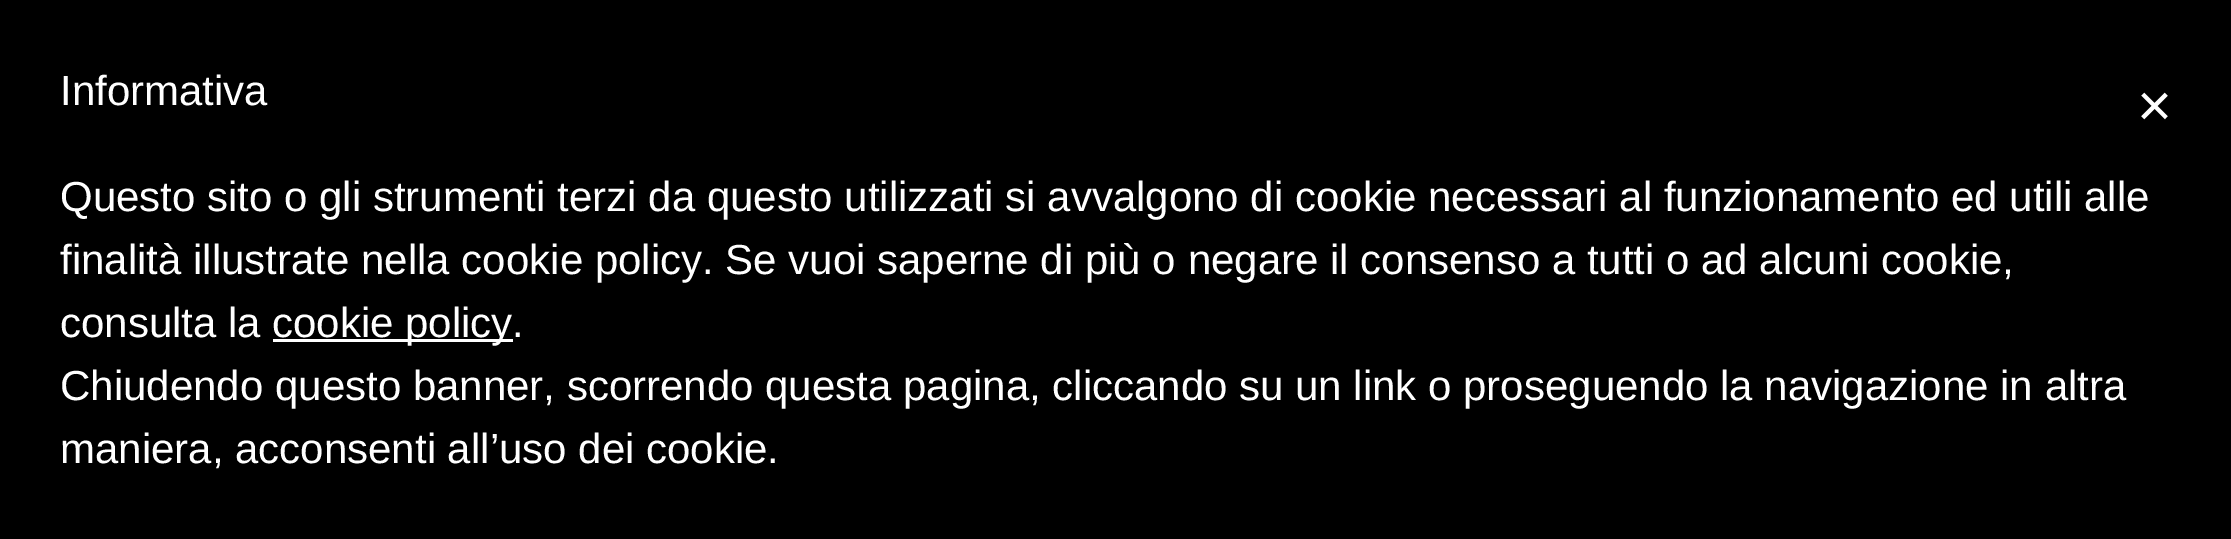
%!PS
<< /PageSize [2231 539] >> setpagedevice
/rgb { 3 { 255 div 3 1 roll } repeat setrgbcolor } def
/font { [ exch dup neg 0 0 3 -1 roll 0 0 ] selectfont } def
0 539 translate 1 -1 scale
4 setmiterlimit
0 0 0 rgb
0 0 2231 539 rectfill
255 255 255 rgb
273 339 240 3 rectfill
/LiberationSans-Regular 42 font
[
  [(Informativa) 60 105]
  [(Questo sito o gli strumenti terzi da questo utilizzati si avvalgono di cookie necessari al funzionamento ed utili alle) 60 211]
  [(finalità illustrate nella cookie policy. Se vuoi saperne di più o negare il consenso a tutti o ad alcuni cookie,) 60 274]
  [(consulta la) 60 337]
  [(cookie policy.) 272 337]
  [(Chiudendo questo banner, scorrendo questa pagina, cliccando su un link o proseguendo la navigazione in altra) 60 400]
  [(maniera, acconsenti all’uso dei cookie.) 60 463]
] { aload pop moveto show } forall
/LiberationSans-Regular 60 font
2137 126 moveto (×) show
showpage
